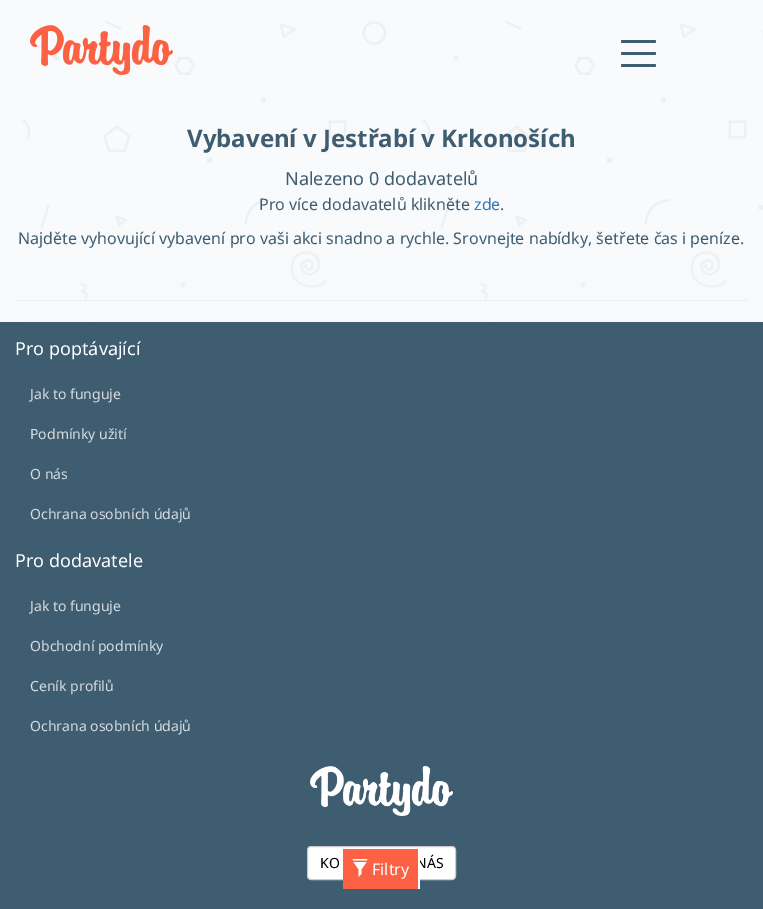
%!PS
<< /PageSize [763 909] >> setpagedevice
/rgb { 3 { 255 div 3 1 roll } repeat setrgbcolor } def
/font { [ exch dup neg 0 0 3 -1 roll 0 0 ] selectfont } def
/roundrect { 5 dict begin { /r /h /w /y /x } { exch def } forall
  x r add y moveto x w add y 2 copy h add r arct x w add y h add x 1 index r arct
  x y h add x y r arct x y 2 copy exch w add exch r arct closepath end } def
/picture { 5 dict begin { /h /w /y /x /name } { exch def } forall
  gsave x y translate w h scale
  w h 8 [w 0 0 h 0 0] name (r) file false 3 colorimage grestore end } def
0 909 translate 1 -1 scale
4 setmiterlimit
248 250 252 rgb
0 0 763 909 rectfill
(img/1.rgb) 22 20 741 302 picture
(img/2.rgb) 30 25 143 50 picture
63 93 112 rgb
621 40 35 3 1.5 roundrect fill
621 52 35 3 1.5 roundrect fill
621 64 35 3 1.5 roundrect fill
238 238 238 rgb
15 300 733 1 rectfill
63 93 112 rgb
0 322 763 587 rectfill
(img/4.rgb) 310 766 143 50 picture
255 255 255 rgb
307.5 846.5 148 33 3.5 roundrect gsave fill grestore
204 204 204 rgb
stroke
/NotoSans-Bold 24 font
63 93 112 rgb
187 147 moveto (Vybavení v Jestřabí v Krkonoších) show
/NotoSans-Regular 18 font
285 185 moveto (Nalezeno 0 dodavatelů) show
/NotoSans-Regular 16 font
259 210 moveto (Pro více dodavatelů klikněte) show
51 122 183 rgb
474 210 moveto (zde) show
63 93 112 rgb
500 210 moveto (.) show
18 244 moveto (Najděte vyhovující vybavení pro vaši akci snadno a rychle. Srovnejte nabídky, šetřete čas i peníze.) show
/NotoSans-Regular 18 font
255 255 255 rgb
15 355 moveto (Pro poptávající) show
/NotoSans-Regular 14 font
214 220 224 rgb
[
  [(Jak to funguje) 30 399]
  [(Podmínky užití) 30 439]
  [(O nás) 30 479]
  [(Ochrana osobních údajů) 30 519]
] { aload pop moveto show } forall
/NotoSans-Regular 18 font
255 255 255 rgb
15 567 moveto (Pro dodavatele) show
/NotoSans-Regular 14 font
214 220 224 rgb
[
  [(Jak to funguje) 30 611]
  [(Obchodní podmínky) 30 651]
  [(Ceník profilů) 30 691]
  [(Ochrana osobních údajů) 30 731]
] { aload pop moveto show } forall
0 0 0 rgb
320 868 moveto (KO) show
416 868 moveto (NÁS) show
252 97 67 rgb
343 849 75 40 rectfill
(img/3.rgb) 352 859 16 18 picture
/NotoSans-Regular 16 font
255 255 255 rgb
372 875 moveto (Filtry) show
418 858 2 31 rectfill
showpage
